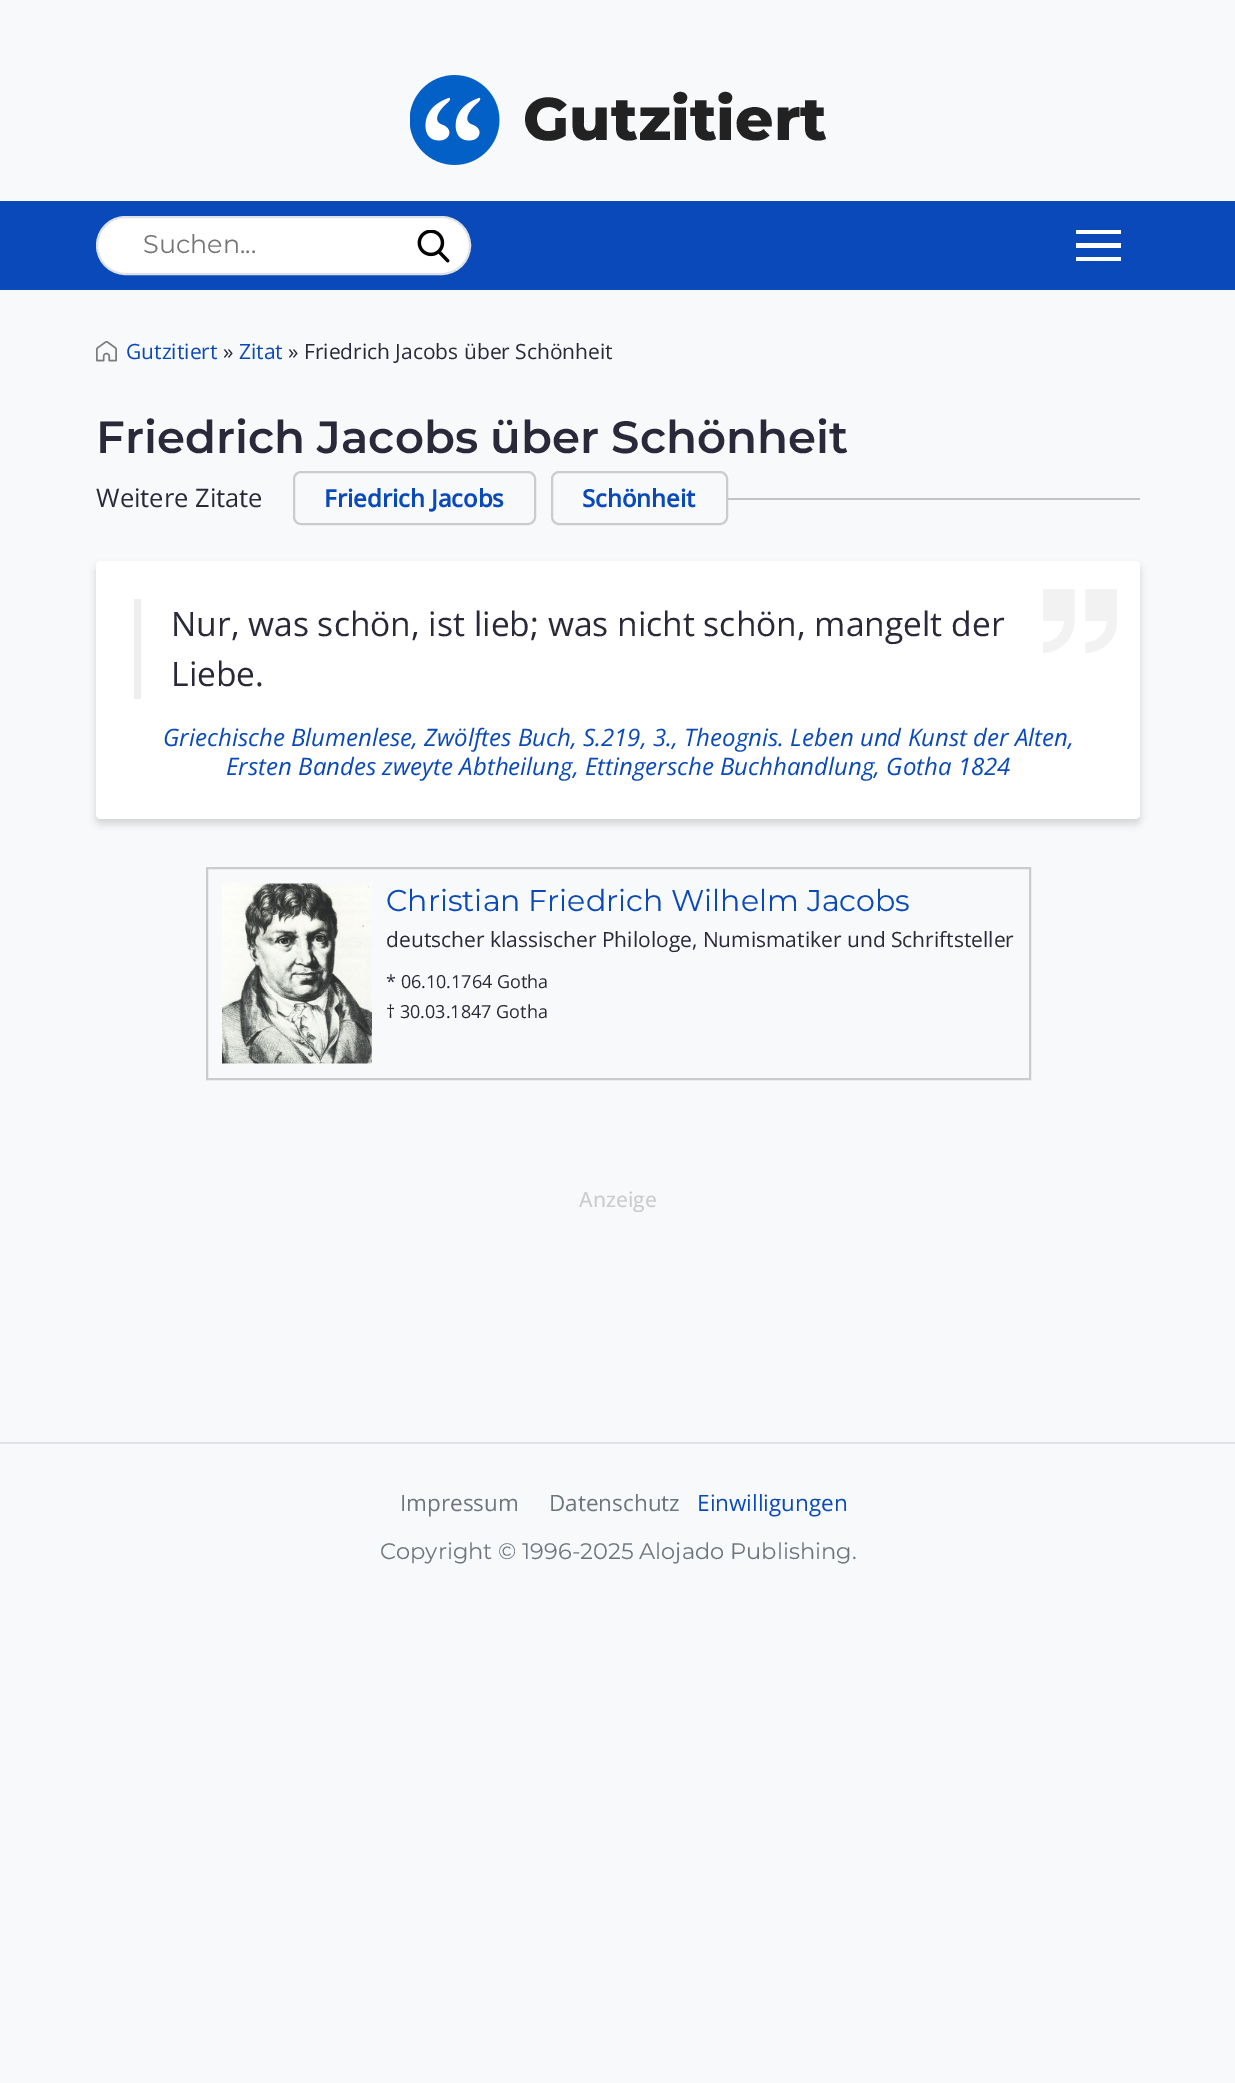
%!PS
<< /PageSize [1235 2083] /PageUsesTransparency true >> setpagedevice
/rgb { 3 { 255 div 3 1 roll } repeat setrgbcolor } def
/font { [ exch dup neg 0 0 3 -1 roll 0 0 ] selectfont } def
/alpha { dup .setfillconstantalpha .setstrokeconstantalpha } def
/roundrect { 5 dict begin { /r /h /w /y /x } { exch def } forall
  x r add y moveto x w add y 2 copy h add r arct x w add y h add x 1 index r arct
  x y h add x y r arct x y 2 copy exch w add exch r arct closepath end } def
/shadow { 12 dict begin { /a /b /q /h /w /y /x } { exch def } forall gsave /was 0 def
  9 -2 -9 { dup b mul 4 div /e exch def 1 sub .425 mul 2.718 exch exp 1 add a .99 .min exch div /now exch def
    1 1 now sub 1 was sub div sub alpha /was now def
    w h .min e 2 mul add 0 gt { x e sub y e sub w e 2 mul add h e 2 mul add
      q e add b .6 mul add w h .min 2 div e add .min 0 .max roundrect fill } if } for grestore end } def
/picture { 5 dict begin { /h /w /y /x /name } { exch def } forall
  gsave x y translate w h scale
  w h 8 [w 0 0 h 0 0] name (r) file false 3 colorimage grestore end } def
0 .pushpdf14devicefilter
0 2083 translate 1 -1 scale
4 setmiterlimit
248 249 250 rgb
0 0 1235 2083 rectfill
(img/1.rgb) 410 75 90 90 picture
10 73 186 rgb
0 201 1235 89 rectfill
255 255 255 rgb
97 217 373 57 28.5 roundrect gsave fill grestore
222 226 230 rgb
2 setlinewidth
stroke
(img/2.rgb) 417 230 33 33 picture
[
  [1076 230 45 4 255 255 255]
  [1076 243 45 5 255 255 255]
  [1076 257 45 4 255 255 255]
] { aload pop rgb rectfill } forall
(img/3.rgb) 96 341 21 21 picture
204 204 204 rgb
294 472 241 52 7 roundrect stroke
552 472 175 52 7 roundrect stroke
195 195 195 rgb
728 498 412 2 rectfill
0 0 0 rgb
96 566 1044 258 5 4 0.15 shadow
255 255 255 rgb
96 561 1044 258 5 roundrect fill
238 238 238 rgb
134 599 7 100 rectfill
(img/4.rgb) 1043 589 74 64 picture
204 204 204 rgb
207 868 823 211 rectstroke
(img/5.rgb) 222 883 150 181 picture
222 226 230 rgb
0 1442 1235 2 rectfill
/Montserrat-ExtraBold 60 font
34 34 34 rgb
523 140 moveto (Gutzitiert) show
/Montserrat-Regular 25.5 font
117 117 117 rgb
143 253 moveto (Suchen...) show
/OpenSans-Regular 21 font
10 73 186 rgb
126 359 moveto (Gutzitiert) show
41 41 58 rgb
223 359 moveto (») show
10 73 186 rgb
239 359 moveto (Zitat) show
41 41 58 rgb
288 359 moveto (» Friedrich Jacobs über Schönheit) show
/Montserrat-SemiBold 45.1 font
96 453 moveto (Friedrich Jacobs über Schönheit) show
/OpenSans-Regular 25.5 font
96 507 moveto (Weitere Zitate) show
/OpenSans-Bold 24 font
10 73 186 rgb
324 507 moveto (Friedrich Jacobs) show
582 507 moveto (Schönheit) show
/OpenSans-Regular 33.6 font
41 41 58 rgb
171 636 moveto (Nur, was schön, ist lieb; was nicht schön, mangelt der) show
171 686 moveto (Liebe.) show
/OpenSans-Italic 24 font
10 73 186 rgb
163 746 moveto (Griechische Blumenlese, Zwölftes Buch, S.219, 3., Theognis. Leben und Kunst der Alten,) show
226 775 moveto (Ersten Bandes zweyte Abtheilung, Ettingersche Buchhandlung, Gotha 1824) show
/Montserrat-Regular 30 font
386 911 moveto (Christian Friedrich Wilhelm Jacobs) show
/OpenSans-Regular 21 font
41 41 58 rgb
386 947 moveto (deutscher klassischer Philologe, Numismatiker und Schriftsteller) show
/OpenSans-Regular 18 font
386 988 moveto (* 06.10.1764 Gotha) show
386 1018 moveto († 30.03.1847 Gotha) show
/OpenSans-Medium 21 font
204 204 204 rgb
579 1207 moveto (Anzeige) show
/OpenSans-Regular 22.5 font
108 117 125 rgb
400 1511 moveto (Impressum) show
549 1511 moveto (Datenschutz) show
10 73 186 rgb
697 1511 moveto (Einwilligungen) show
/Montserrat-Regular 22.5 font
108 117 125 rgb
380 1559 moveto (Copyright © 1996-2025 Alojado Publishing.) show
.poppdf14devicefilter showpage
